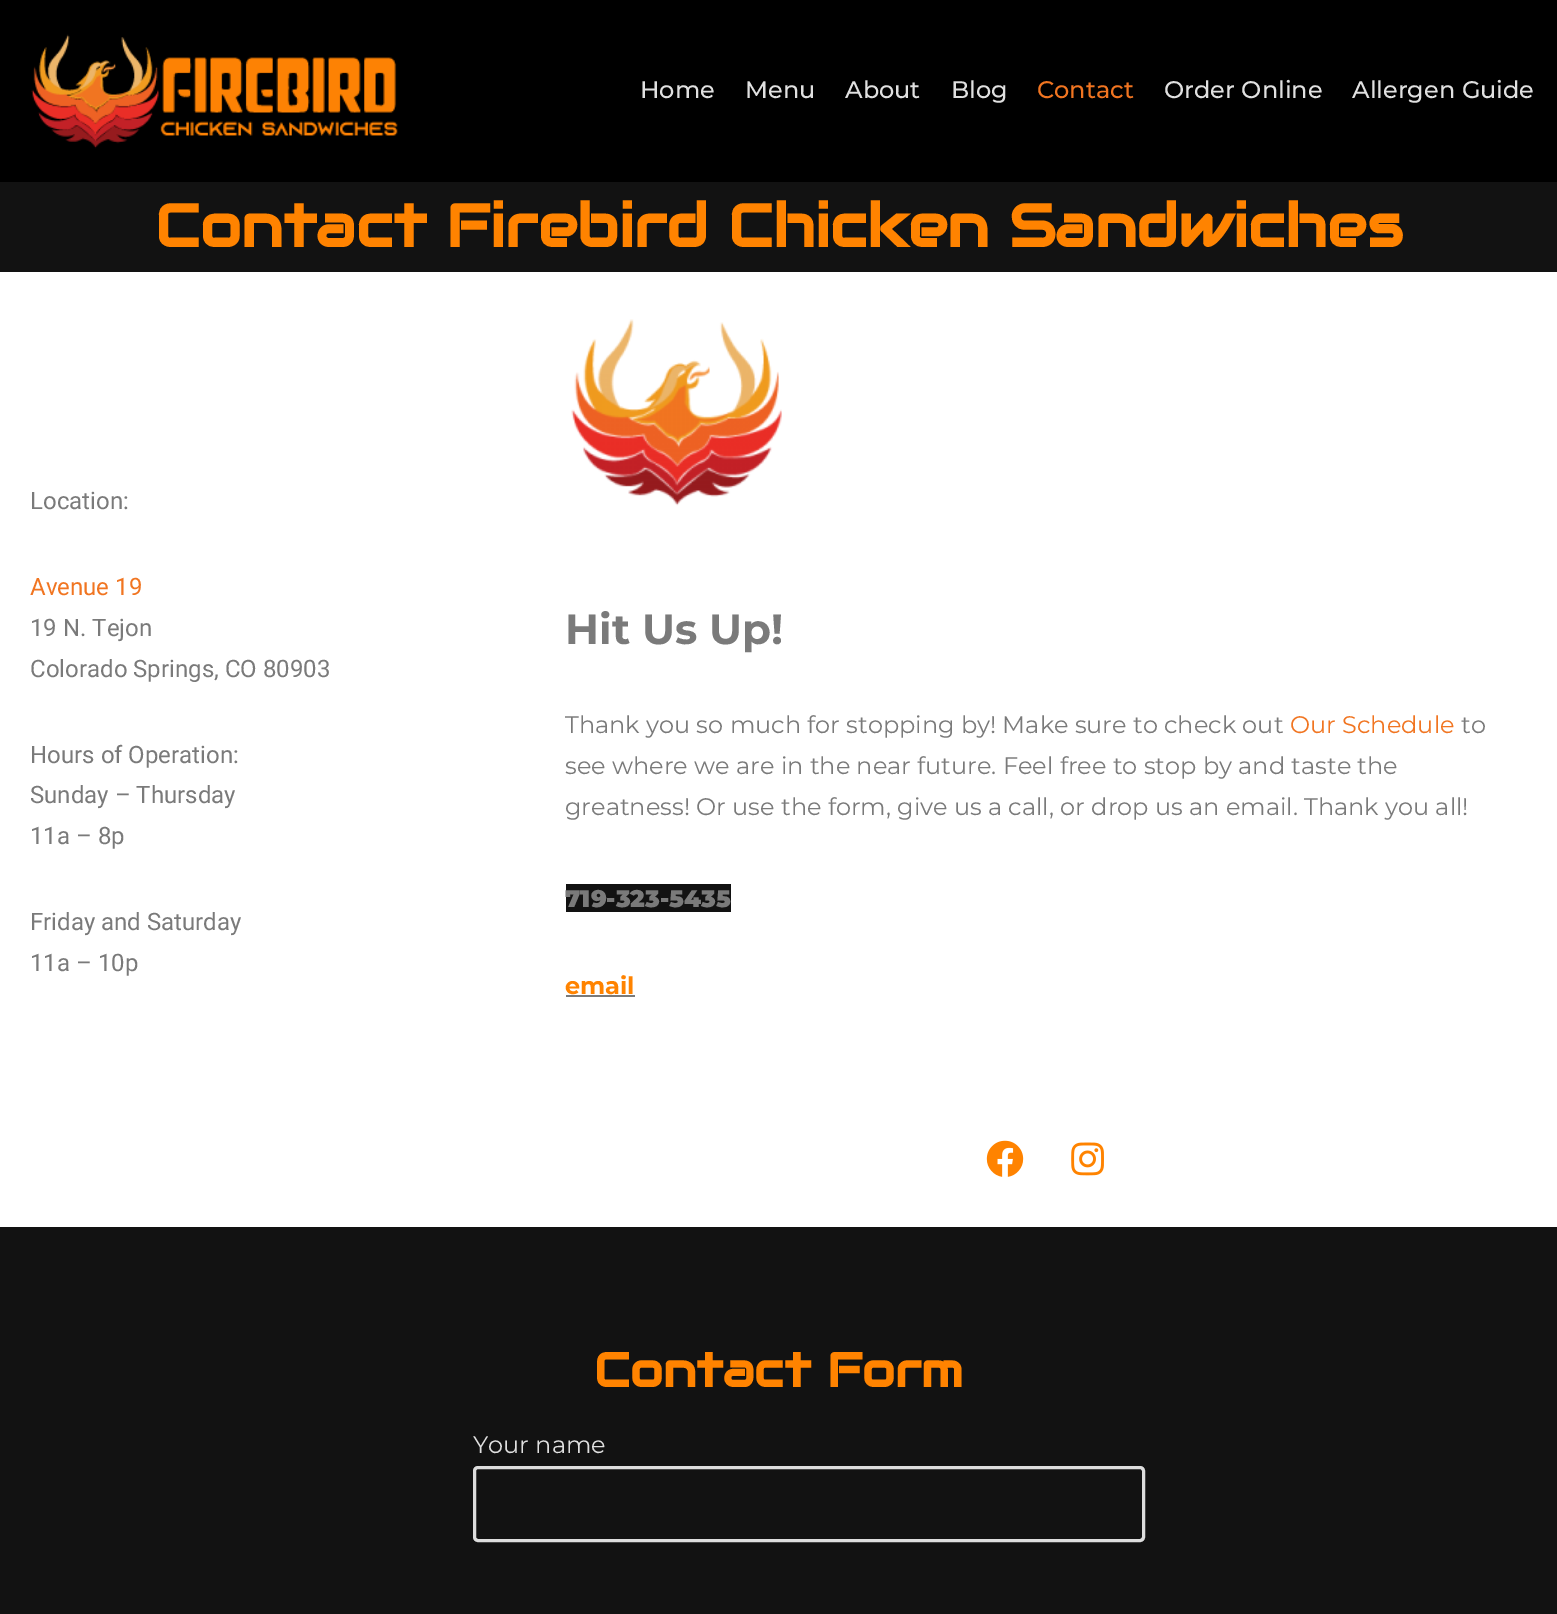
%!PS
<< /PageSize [1557 1614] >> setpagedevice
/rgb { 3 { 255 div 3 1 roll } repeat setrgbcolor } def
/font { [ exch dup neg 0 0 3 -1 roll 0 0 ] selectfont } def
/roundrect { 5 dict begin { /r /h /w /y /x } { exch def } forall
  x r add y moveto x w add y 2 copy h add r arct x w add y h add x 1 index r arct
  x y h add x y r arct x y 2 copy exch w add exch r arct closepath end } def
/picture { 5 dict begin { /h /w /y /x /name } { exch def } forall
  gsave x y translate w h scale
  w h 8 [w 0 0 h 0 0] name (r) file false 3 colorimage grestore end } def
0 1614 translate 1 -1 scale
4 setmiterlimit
18 18 18 rgb
0 0 1557 1614 rectfill
0 0 0 rgb
0 0 1557 182 rectfill
(img/1.rgb) 31 34 367 115 picture
255 255 255 rgb
0 272 1557 955 rectfill
(img/2.rgb) 571 319 211 187 picture
18 18 18 rgb
566 884 165 28 rectfill
122 122 122 rgb
566 995 69 2 rectfill
(img/3.rgb) 986 1140 38 37 picture
(img/4.rgb) 1071 1142 33 34 picture
221 221 221 rgb
3 setlinewidth
474.5 1467.5 669 73 3.5 roundrect stroke
/Montserrat-Medium 24 font
224 224 224 rgb
[
  [(Home) 640 98]
  [(Menu) 745 98]
  [(About) 845 98]
  [(Blog) 951 98]
] { aload pop moveto show } forall
241 117 33 rgb
1037 98 moveto (Contact) show
224 224 224 rgb
1164 98 moveto (Order Online) show
1352 98 moveto (Allergen Guide) show
/Audiowide-Bold 60 font
255 131 0 rgb
155 247 moveto (Contact Firebird Chicken Sandwiches) show
/Roboto-Regular 24 font
122 122 122 rgb
30 509 moveto (Location:) show
241 117 33 rgb
30 595 moveto (Avenue 19) show
122 122 122 rgb
[
  [(19 N. Tejon) 30 636]
  [(Colorado Springs, CO 80903) 30 677]
  [(Hours of Operation:) 30 763]
  [(Sunday – Thursday) 30 803]
  [(11a – 8p) 30 844]
  [(Friday and Saturday) 30 930]
  [(11a – 10p) 30 971]
] { aload pop moveto show } forall
/Montserrat-Bold 42 font
565 644 moveto (Hit Us Up!) show
/Montserrat-Regular 24 font
565 733 moveto (Thank you so much for stopping by! Make sure to check out) show
241 117 33 rgb
1290 733 moveto (Our Schedule) show
122 122 122 rgb
[
  [(to) 1461 733]
  [(see where we are in the near future. Feel free to stop by and taste the) 565 774]
  [(greatness! Or use the form, give us a call, or drop us an email. Thank you all!) 565 815]
] { aload pop moveto show } forall
/Montserrat-Black 24 font
565 907 moveto (719-323-5435) show
/Montserrat-Bold 24 font
255 131 0 rgb
565 994 moveto (email) show
/Audiowide-Bold 48 font
594 1387 moveto (Contact Form) show
/Montserrat-Regular 24 font
224 224 224 rgb
473 1453 moveto (Your name) show
showpage
